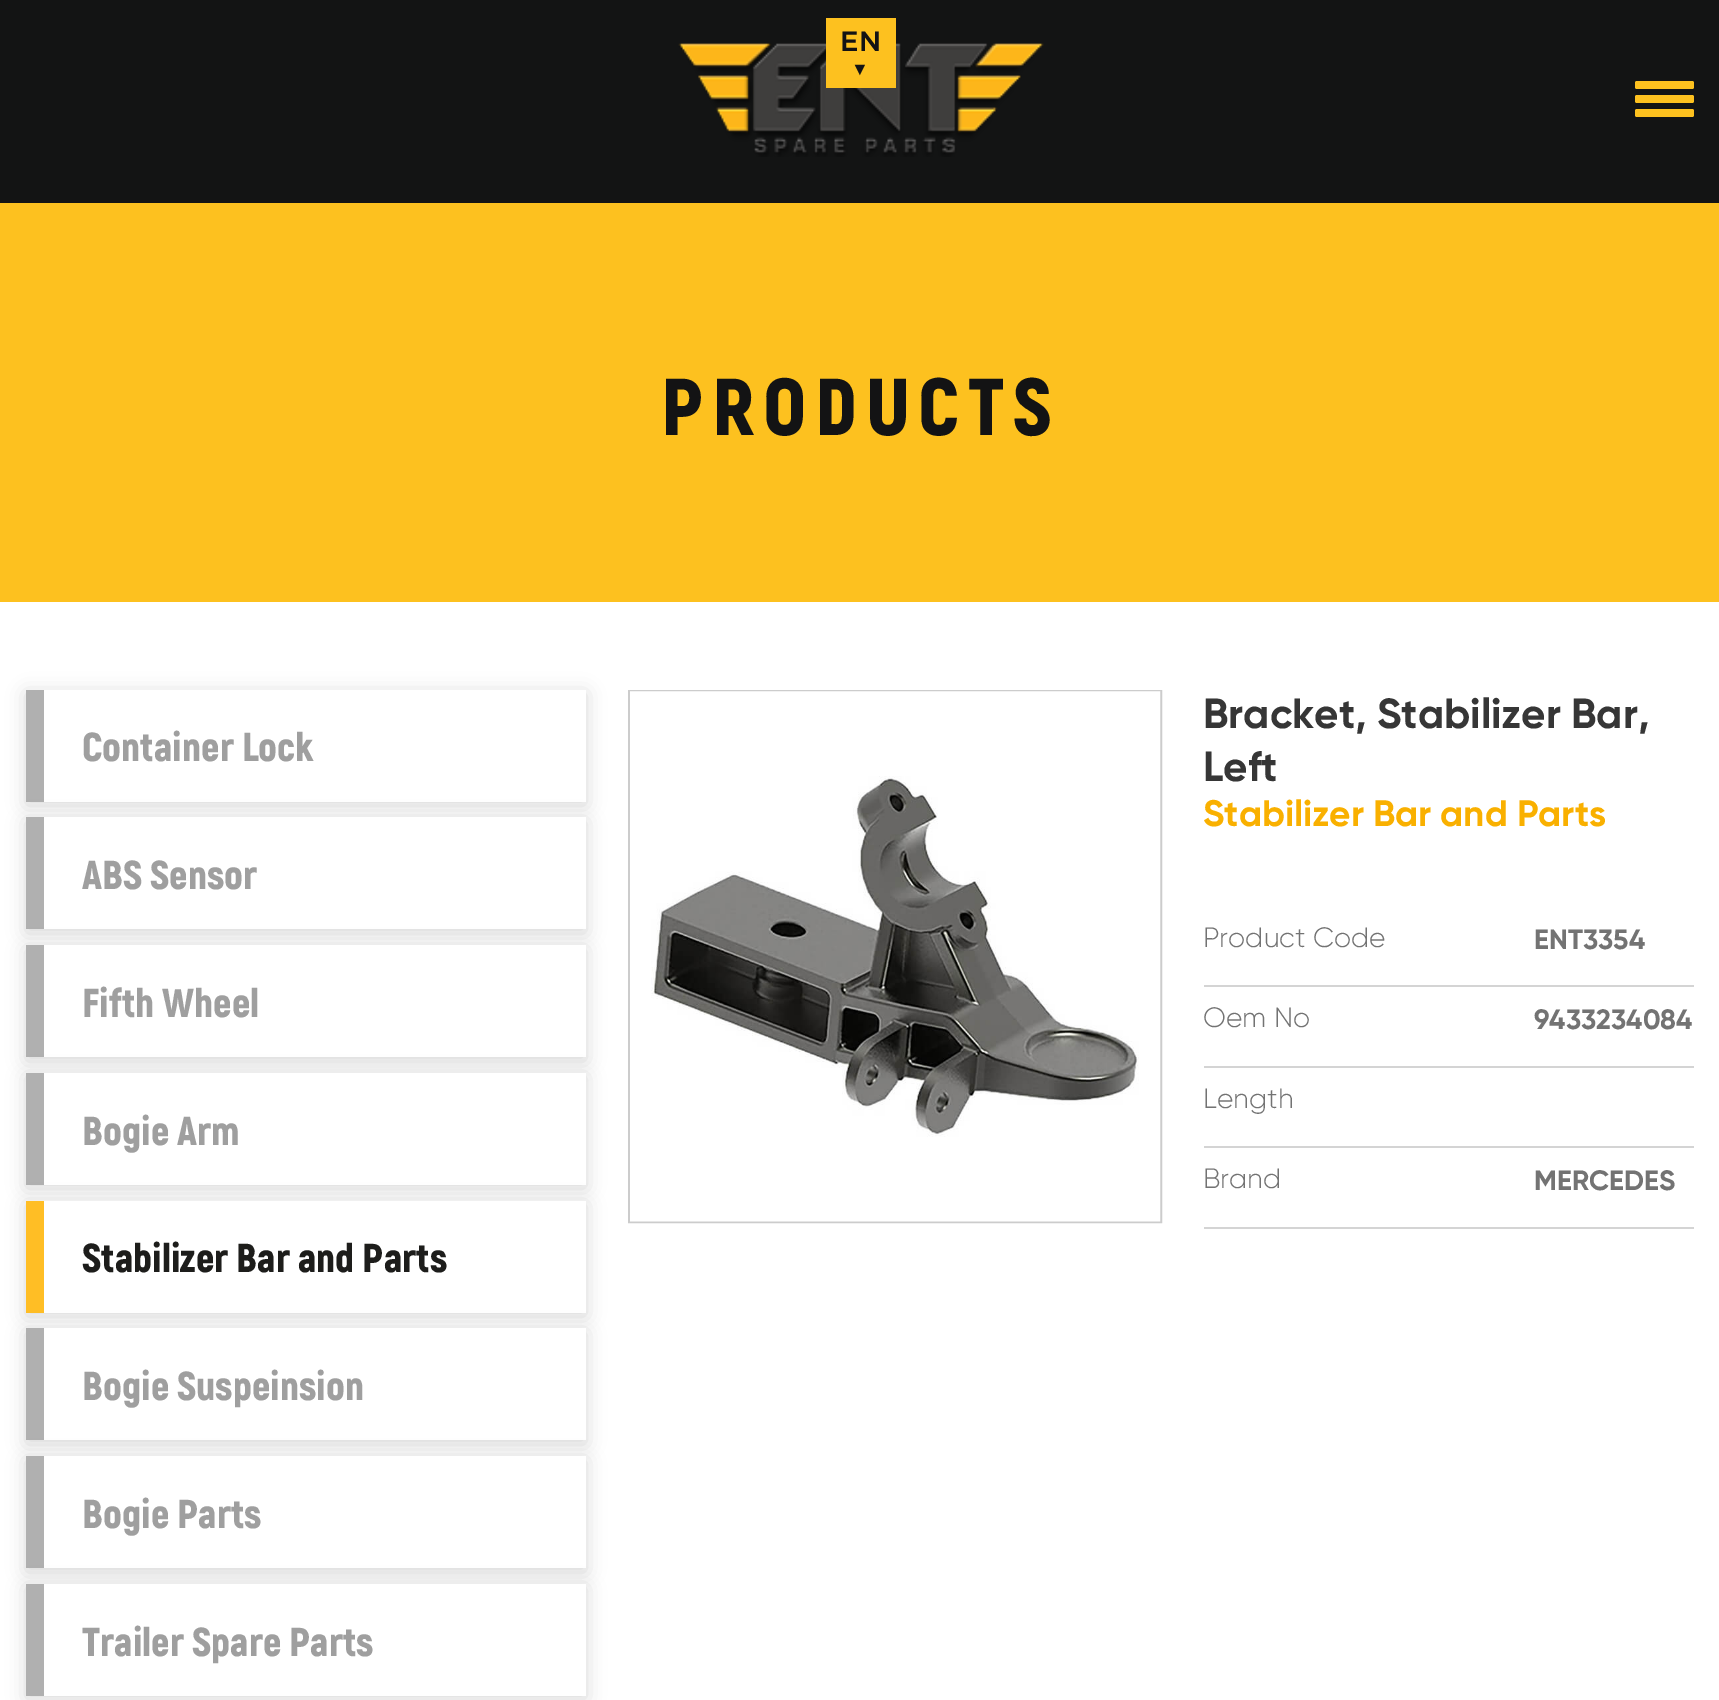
%!PS
<< /PageSize [1719 1700] /PageUsesTransparency true >> setpagedevice
/rgb { 3 { 255 div 3 1 roll } repeat setrgbcolor } def
/font { [ exch dup neg 0 0 3 -1 roll 0 0 ] selectfont } def
/alpha { dup .setfillconstantalpha .setstrokeconstantalpha } def
/roundrect { 5 dict begin { /r /h /w /y /x } { exch def } forall
  x r add y moveto x w add y 2 copy h add r arct x w add y h add x 1 index r arct
  x y h add x y r arct x y 2 copy exch w add exch r arct closepath end } def
/shadow { 12 dict begin { /a /b /q /h /w /y /x } { exch def } forall gsave /was 0 def
  9 -2 -9 { dup b mul 4 div /e exch def 1 sub .425 mul 2.718 exch exp 1 add a .99 .min exch div /now exch def
    1 1 now sub 1 was sub div sub alpha /was now def
    w h .min e 2 mul add 0 gt { x e sub y e sub w e 2 mul add h e 2 mul add
      q e add b .6 mul add w h .min 2 div e add .min 0 .max roundrect fill } if } for grestore end } def
/picture { 5 dict begin { /h /w /y /x /name } { exch def } forall
  gsave x y translate w h scale
  w h 8 [w 0 0 h 0 0] name (r) file false 3 colorimage grestore end } def
0 .pushpdf14devicefilter
0 1700 translate 1 -1 scale
4 setmiterlimit
255 255 255 rgb
0 0 1719 1700 rectfill
19 20 20 rgb
0 0 1719 203 rectfill
(img/1.rgb) 678 43 366 114 picture
253 193 31 rgb
826 18 70 70 rectfill
1635 81 59 8 2 roundrect fill
1635 95 59 8 2 roundrect fill
1635 109 59 8 2 roundrect fill
0 203 1719 399 rectfill
0 0 0 rgb
26 693 560 112 0 9.5 0.15 shadow
255 255 255 rgb
44 690 542 112 rectfill
176 176 176 rgb
26 690 18 112 rectfill
0 0 0 rgb
26 821 560 112 0 9.5 0.15 shadow
255 255 255 rgb
44 817 542 112 rectfill
176 176 176 rgb
26 817 18 112 rectfill
0 0 0 rgb
26 949 560 112 0 9.5 0.15 shadow
255 255 255 rgb
44 945 542 112 rectfill
176 176 176 rgb
26 945 18 112 rectfill
0 0 0 rgb
26 1076 560 112 0 9.5 0.15 shadow
255 255 255 rgb
44 1073 542 112 rectfill
176 176 176 rgb
26 1073 18 112 rectfill
0 0 0 rgb
26 1204 560 112 0 9.5 0.15 shadow
255 255 255 rgb
44 1201 542 112 rectfill
255 190 37 rgb
26 1201 18 112 rectfill
0 0 0 rgb
26 1332 560 112 0 9.5 0.15 shadow
255 255 255 rgb
44 1328 542 112 rectfill
176 176 176 rgb
26 1328 18 112 rectfill
0 0 0 rgb
26 1460 560 112 0 9.5 0.15 shadow
255 255 255 rgb
44 1456 542 112 rectfill
176 176 176 rgb
26 1456 18 112 rectfill
0 0 0 rgb
26 1587 560 112 0 9.5 0.15 shadow
255 255 255 rgb
44 1584 542 112 rectfill
176 176 176 rgb
26 1584 18 112 rectfill
204 204 204 rgb
2 setlinewidth
629 691 532 531 rectstroke
(img/2.rgb) 630 691 531 531 picture
[
  [1204 985 490 2 212 212 212]
  [1204 1066 490 2 212 212 212]
  [1204 1146 490 2 212 212 212]
  [1204 1227 490 2 212 212 212]
] { aload pop rgb rectfill } forall
/Montserrat-Medium 28 font
19 19 20 rgb
840 51 moveto (EN) show
/LiberationSerif-Regular 18 font
851 75 moveto (▼) show
/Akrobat-Black 80.5 font
661 435 moveto 8.75 0 (PRODUCTS) ashow
/Akrobat-Black 40.25 font
159 159 159 rgb
[
  [(Container Lock) 82 761]
  [(ABS Sensor) 82 889]
  [(Fifth Wheel) 82 1017]
  [(Bogie Arm) 82 1145]
] { aload pop moveto show } forall
29 29 27 rgb
82 1272 moveto (Stabilizer Bar and Parts) show
159 159 159 rgb
[
  [(Bogie Suspeinsion) 82 1400]
  [(Bogie Parts) 82 1528]
  [(Trailer Spare Parts) 82 1656]
] { aload pop moveto show } forall
/Gilroy-Bold 42 font
54 54 54 rgb
1203 728 moveto (Bracket, Stabilizer Bar,) show
1203 781 moveto (Left) show
/Gilroy-Bold 36.75 font
249 176 0 rgb
1203 826 moveto (Stabilizer Bar and Parts) show
/Gilroy-Light 28 font
115 115 115 rgb
1203 947 moveto (Product Code) show
/Gilroy-Bold 28 font
1534 949 moveto (ENT3354) show
/Gilroy-Light 28 font
1203 1027 moveto (Oem No) show
/Gilroy-Bold 28 font
1534 1029 moveto (9433234084) show
/Gilroy-Light 28 font
1203 1108 moveto (Length) show
1203 1188 moveto (Brand) show
/Gilroy-Bold 28 font
1534 1190 moveto (MERCEDES) show
.poppdf14devicefilter showpage
